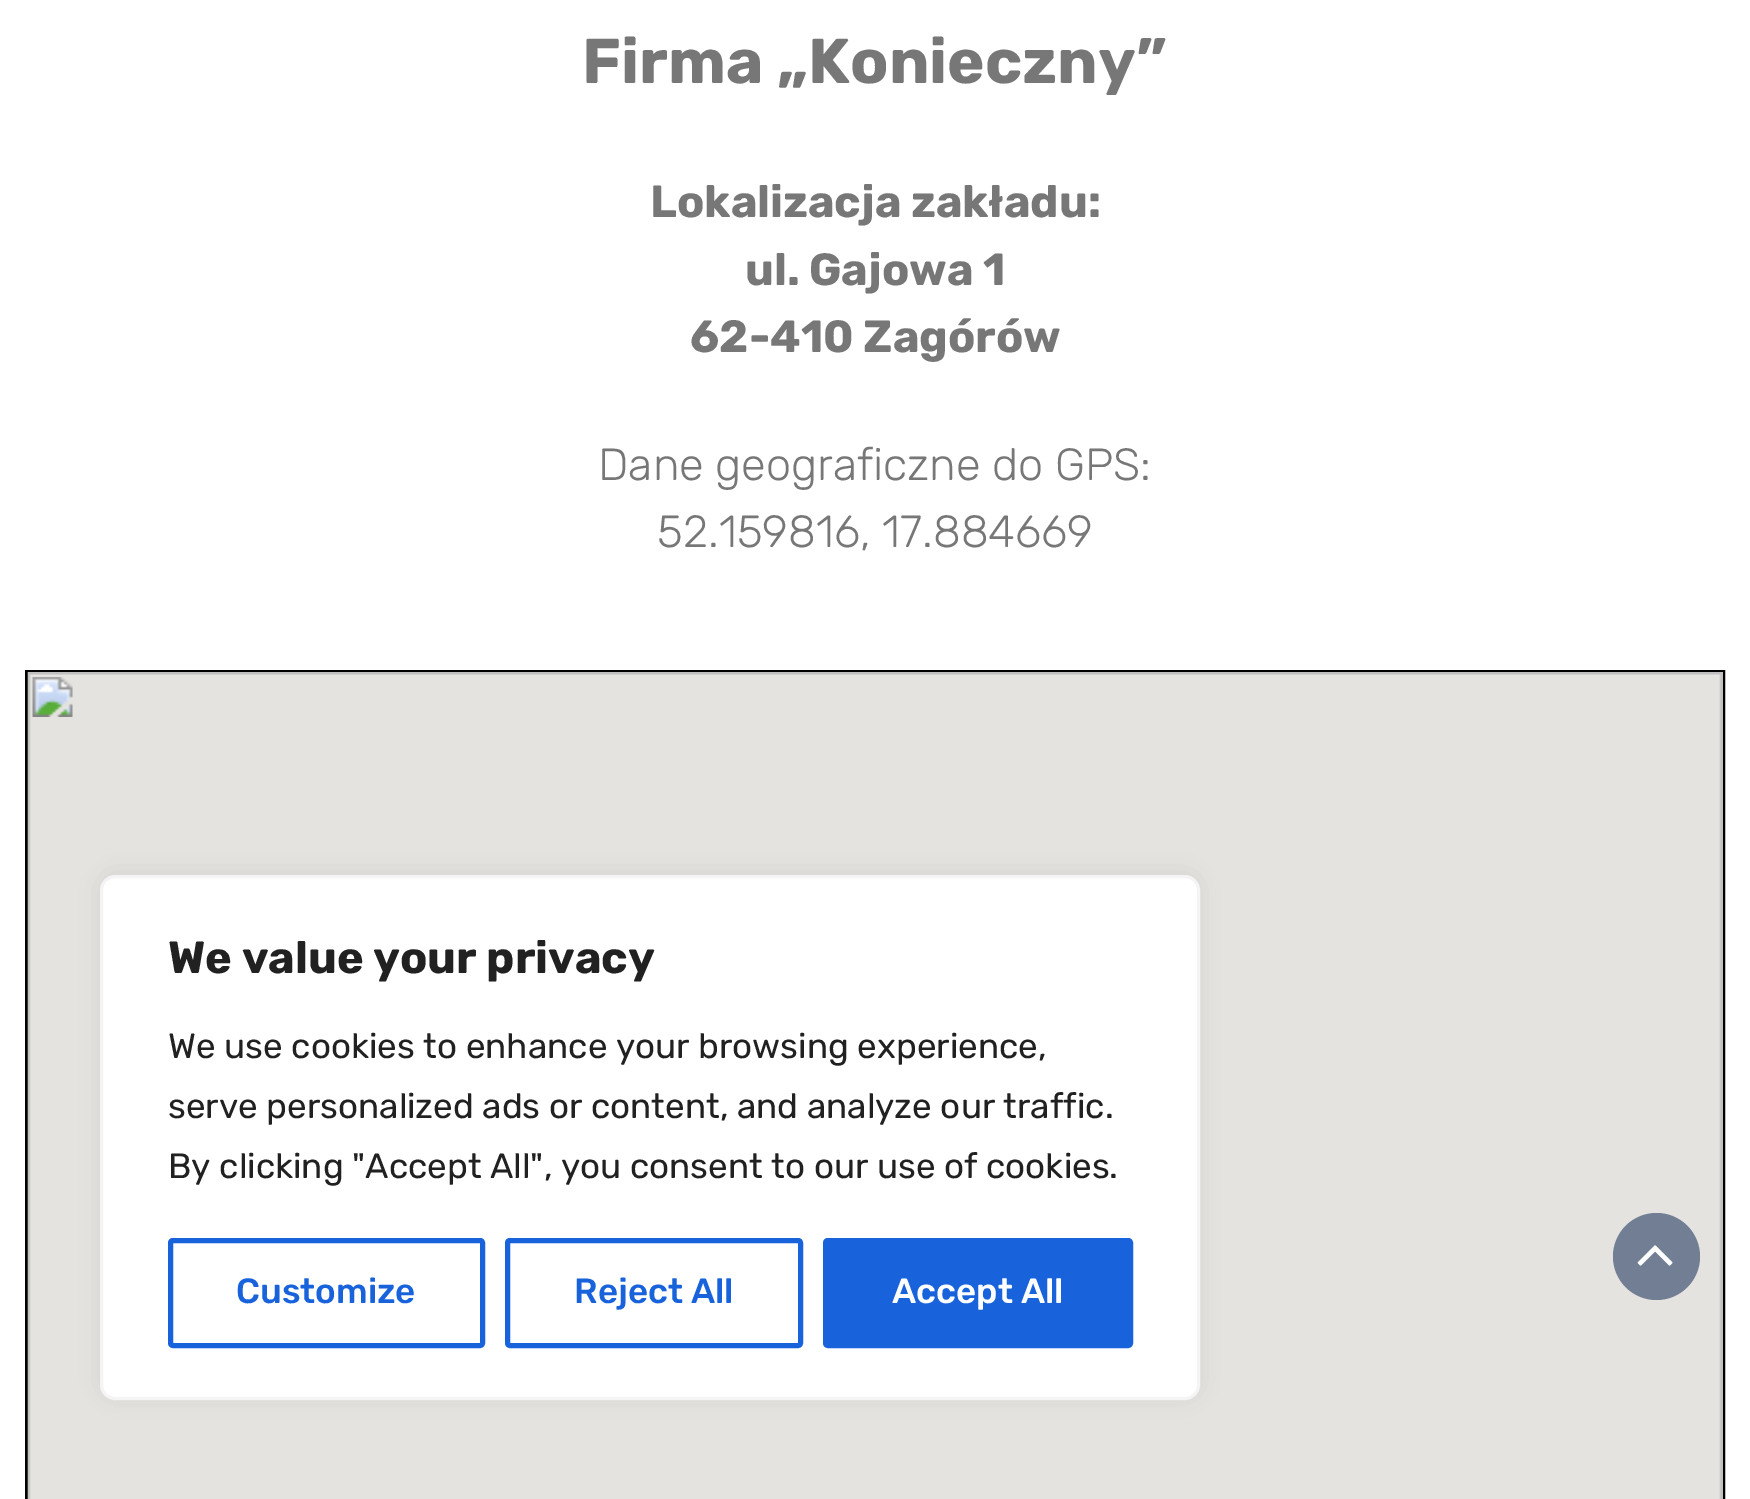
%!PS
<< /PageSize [1750 1499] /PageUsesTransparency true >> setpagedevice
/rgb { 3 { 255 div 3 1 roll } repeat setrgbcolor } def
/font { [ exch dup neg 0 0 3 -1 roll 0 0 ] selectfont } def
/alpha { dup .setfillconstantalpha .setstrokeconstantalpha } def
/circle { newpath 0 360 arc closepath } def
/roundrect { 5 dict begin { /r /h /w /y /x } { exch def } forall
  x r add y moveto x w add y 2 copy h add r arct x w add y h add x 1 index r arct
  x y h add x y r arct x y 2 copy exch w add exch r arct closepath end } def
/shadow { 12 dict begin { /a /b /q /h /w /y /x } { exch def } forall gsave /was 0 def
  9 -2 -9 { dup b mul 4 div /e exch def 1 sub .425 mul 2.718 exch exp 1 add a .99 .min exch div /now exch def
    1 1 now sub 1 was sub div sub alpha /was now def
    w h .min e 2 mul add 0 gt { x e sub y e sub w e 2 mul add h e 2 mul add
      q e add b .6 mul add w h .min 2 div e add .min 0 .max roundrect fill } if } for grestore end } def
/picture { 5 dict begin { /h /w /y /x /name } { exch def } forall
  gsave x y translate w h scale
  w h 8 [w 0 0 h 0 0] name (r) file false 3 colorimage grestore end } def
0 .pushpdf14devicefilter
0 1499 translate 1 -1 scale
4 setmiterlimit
255 255 255 rgb
0 0 1750 1499 rectfill
0 0 0 rgb
3 setlinewidth
26.5 671.5 1697 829 rectstroke
(img/1.rgb) 27 672 1696 827 picture
172 171 171 rgb
100 873 1100 525 15 12.5 0.3 shadow
255 255 255 rgb
101.5 876.5 1097 522 13.5 roundrect gsave fill grestore
244 244 244 rgb
stroke
24 99 220 rgb
5 setlinewidth
170.5 1240.5 312 105 2.5 roundrect stroke
507.5 1240.5 293 105 2.5 roundrect stroke
825.5 1240.5 305 105 2.5 roundrect gsave fill grestore
stroke
113 126 148 rgb
1656.5 1256.5 43.5 circle fill
(img/2.rgb) 1637 1245 36 21 picture
/Rubik-Bold 63.25 font
119 119 119 rgb
582 83 moveto (Firma „Konieczny”) show
/Rubik-Bold 45 font
[
  [(Lokalizacja zakładu:) 650 217]
  [(ul. Gajowa 1) 745 285]
  [(62-410 Zagórów) 690 352]
] { aload pop moveto show } forall
/Rubik-Light 45 font
598 480 moveto (Dane geograficzne do GPS:) show
657 547 moveto (52.159816, 17.884669) show
/Rubik-Bold 45 font
33 33 33 rgb
168 973 moveto (We value your privacy) show
/Rubik-Regular 35 font
[
  [(We use cookies to enhance your browsing experience,) 168 1058]
  [(serve personalized ads or content, and analyze our traffic.) 168 1118]
  [(By clicking "Accept All", you consent to our use of cookies.) 168 1178]
] { aload pop moveto show } forall
/Rubik-Medium 35 font
24 99 220 rgb
236 1303 moveto (Customize) show
574 1303 moveto (Reject All) show
255 255 255 rgb
892 1303 moveto (Accept All) show
.poppdf14devicefilter showpage
